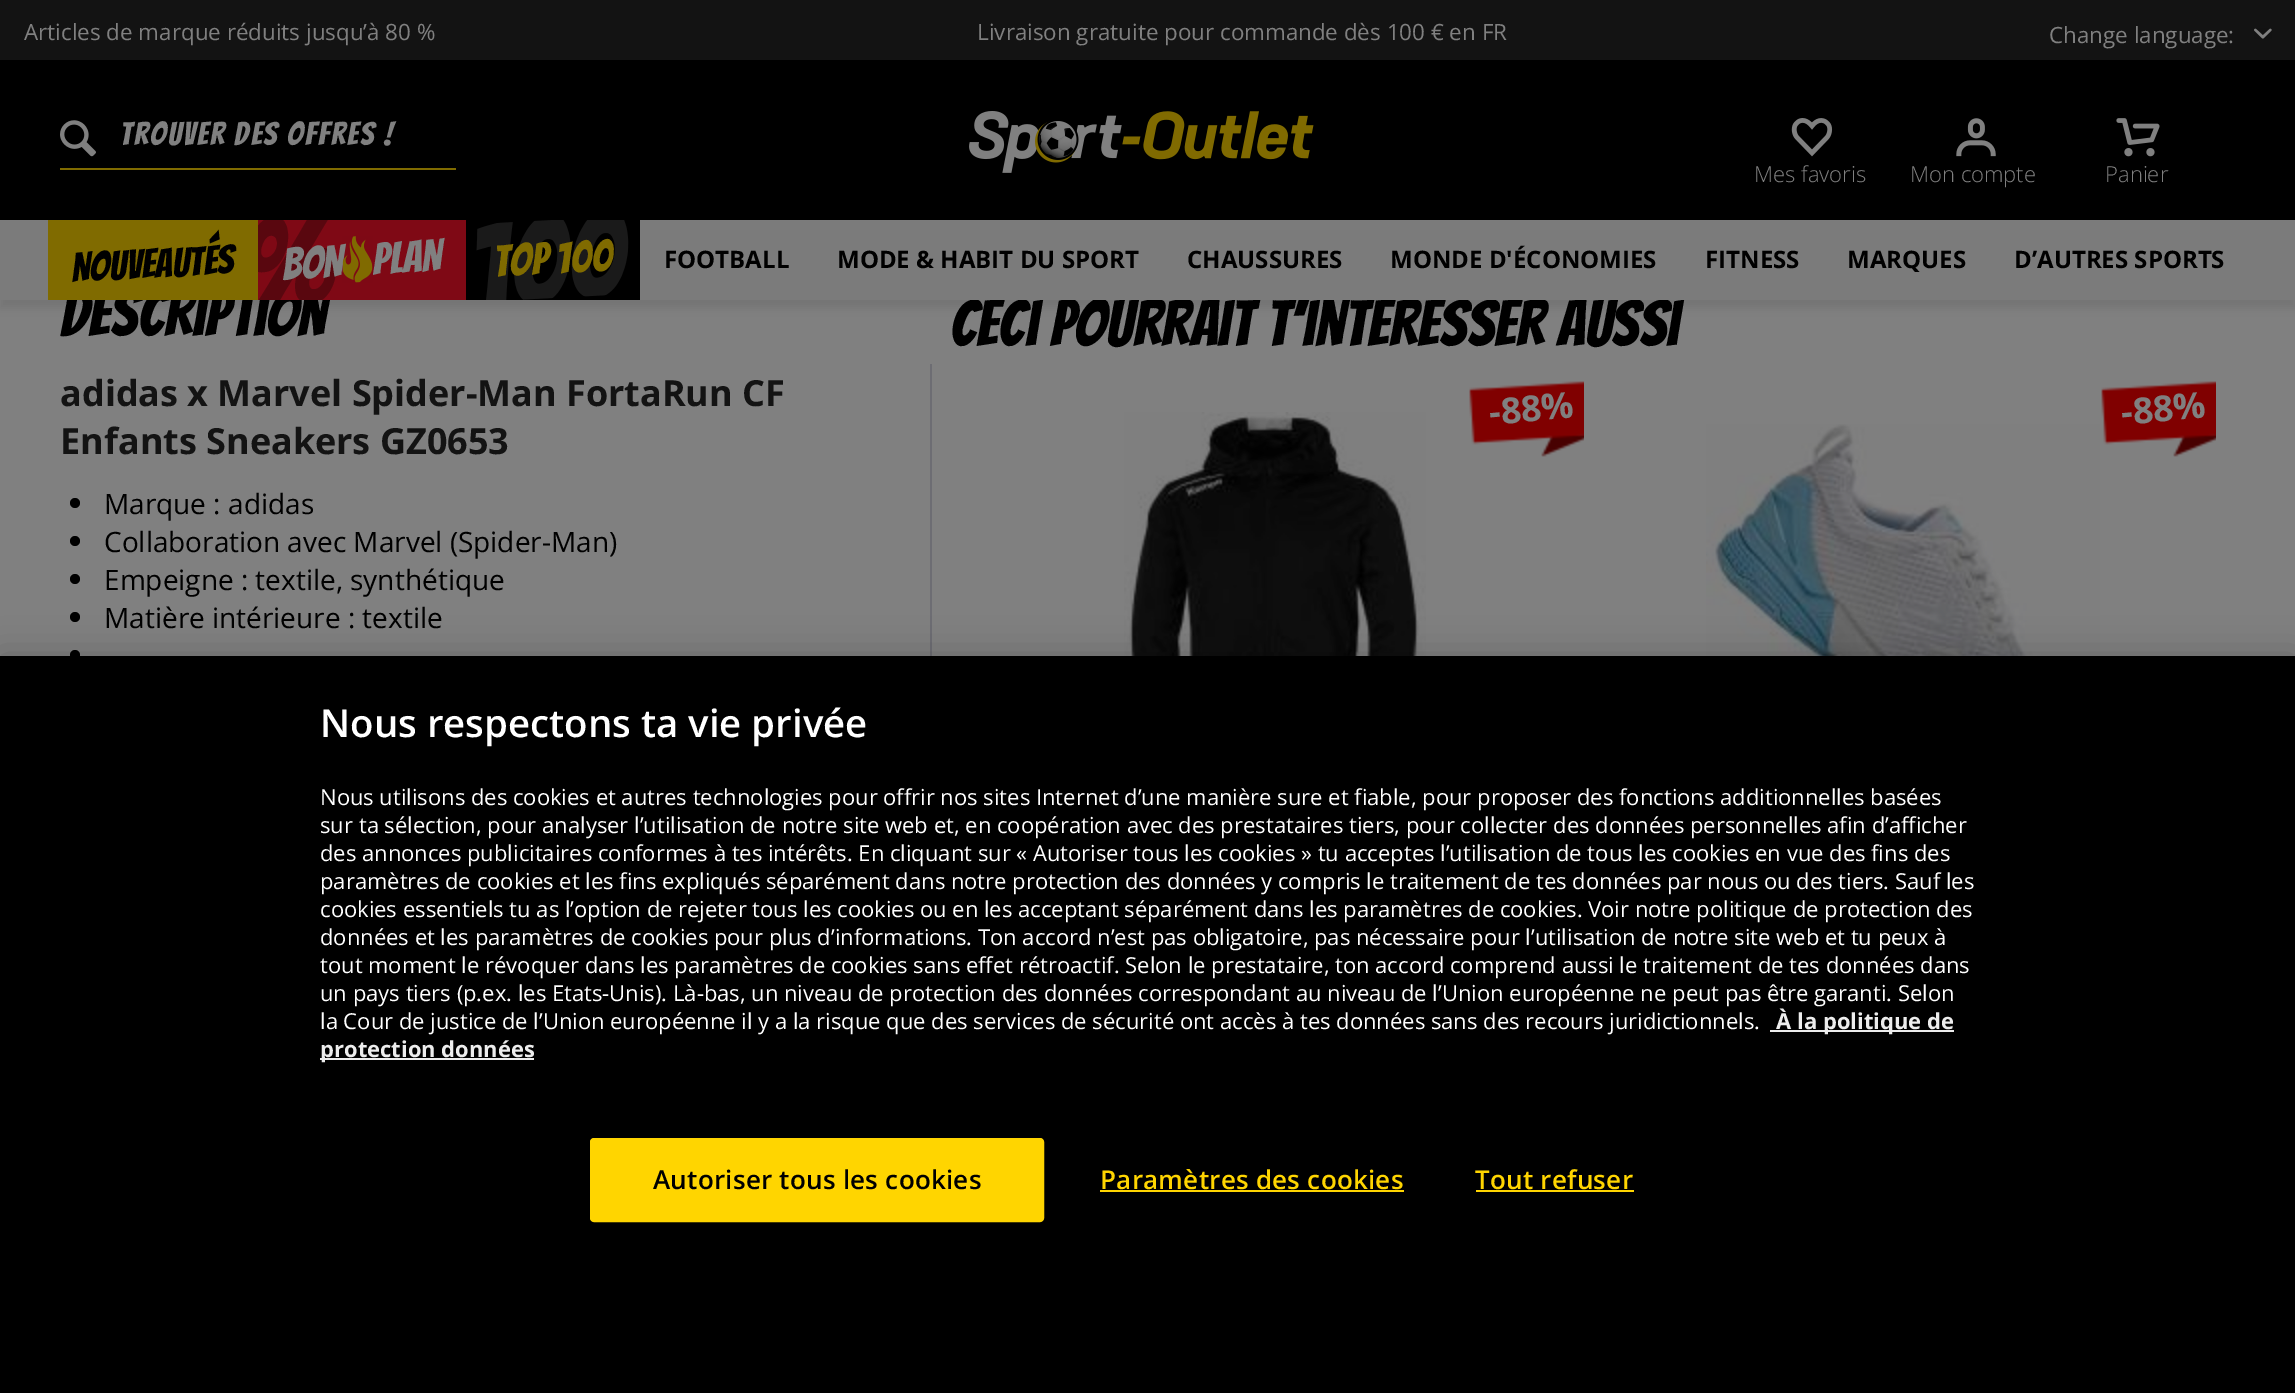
%!PS
<< /PageSize [2295 1393] /PageUsesTransparency true >> setpagedevice
/rgb { 3 { 255 div 3 1 roll } repeat setrgbcolor } def
/font { [ exch dup neg 0 0 3 -1 roll 0 0 ] selectfont } def
/alpha { dup .setfillconstantalpha .setstrokeconstantalpha } def
/circle { newpath 0 360 arc closepath } def
/roundrect { 5 dict begin { /r /h /w /y /x } { exch def } forall
  x r add y moveto x w add y 2 copy h add r arct x w add y h add x 1 index r arct
  x y h add x y r arct x y 2 copy exch w add exch r arct closepath end } def
/shadow { 12 dict begin { /a /b /q /h /w /y /x } { exch def } forall gsave /was 0 def
  9 -2 -9 { dup b mul 4 div /e exch def 1 sub .425 mul 2.718 exch exp 1 add a .99 .min exch div /now exch def
    1 1 now sub 1 was sub div sub alpha /was now def
    w h .min e 2 mul add 0 gt { x e sub y e sub w e 2 mul add h e 2 mul add
      q e add b .6 mul add w h .min 2 div e add .min 0 .max roundrect fill } if } for grestore end } def
/picture { 5 dict begin { /h /w /y /x /name } { exch def } forall
  gsave x y translate w h scale
  w h 8 [w 0 0 h 0 0] name (r) file false 3 colorimage grestore end } def
0 .pushpdf14devicefilter
0 1393 translate 1 -1 scale
4 setmiterlimit
128 128 128 rgb
0 0 2295 1393 rectfill
0 0 0 rgb
0 228 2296 80 0 4 0.1 shadow
0 60 2295 160 rectfill
19 19 19 rgb
0 0 2295 60 rectfill
(img/1.rgb) 2254 28 18 11 picture
(img/2.rgb) 60 120 36 37 picture
128 107 0 rgb
60 168 396 2 rectfill
(img/3.rgb) 969 111 345 62 picture
(img/4.rgb) 1791 118 42 39 picture
(img/5.rgb) 1956 118 40 39 picture
(img/6.rgb) 2116 118 44 39 picture
0 0 0 rgb
75 503 5 circle fill
75 541 5 circle fill
75 579 5 circle fill
75 617 5 circle fill
75 655 5 circle fill
109 109 115 rgb
930 360 2 296 rectfill
128 128 128 rgb
930 360 2 4 rectfill
(img/9.rgb) 1469 381 115 76 picture
(img/10.rgb) 1124 412 302 244 picture
(img/9.rgb) 2101 381 115 76 picture
(img/11.rgb) 1706 424 394 232 picture
0 0 0 rgb
0 656 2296 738 0 18 0.2 shadow
[
  [0 656 2295 737 0 0 0]
  [1770 1030 184 2 237 237 237]
  [320 1058 214 2 237 237 237]
] { aload pop rgb rectfill } forall
255 213 0 rgb
591 1139 452 82 3 roundrect gsave fill grestore
2 setlinewidth
stroke
1100 1190 304 2 rectfill
1476 1190 158 2 rectfill
/OpenSans-Regular 22.4 font
128 128 128 rgb
[
  [(Articles de marque réduits jusqu’à 80 %) 24 40]
  [(Livraison gratuite pour commande dès 100 € en FR) 977 40]
  [(Change language:) 2049 43]
] { aload pop moveto show } forall
/Bangers-Regular 32 font
120 145 moveto 2 0 (Trouver des offres !) ashow
/OpenSans-Light 22 font
[
  [(Mes favoris) 1754 182]
  [(Mon compte) 1910 182]
  [(Panier) 2105 182]
] { aload pop moveto show } forall
/Bangers-Regular 64 font
0 0 0 rgb
60 336 moveto (Description) show
/OpenSans-Bold 36 font
19 19 19 rgb
60 406 moveto (adidas x Marvel Spider-Man FortaRun CF) show
60 454 moveto (Enfants Sneakers GZ0653) show
/OpenSans-Regular 28 font
0 0 0 rgb
[
  [(Marque : adidas) 104 514]
  [(Collaboration avec Marvel \(Spider-Man\)) 104 552]
  [(Empeigne : textile, synthétique) 104 590]
  [(Matière intérieure : textile) 104 628]
] { aload pop moveto show } forall
/Bangers-Regular 64 font
950 346 moveto (Ceci pourrait t’intéresser aussi) show
123 123 123 rgb
0 220 2295 80 rectfill
/OpenSans-Bold 24 font
0 0 0 rgb
[
  [(D’AUTRES SPORTS) 2014 268]
  [(MARQUES) 1847 268]
  [(FITNESS) 1705 268]
  [(MONDE D'ÉCONOMIES) 1390 268]
  [(CHAUSSURES) 1187 268]
  [(MODE & HABIT DU SPORT) 837 268]
  [(FOOTBALL) 664 268]
] { aload pop moveto show } forall
466 220 174 80 rectfill
(img/8.rgb) 476 220 153 80 picture
/Bangers-Regular 44 font
128 107 0 rgb
gsave 494 277 translate -3 rotate 0 0 moveto (TOP 100) show grestore
127 9 21 rgb
258 220 208 80 rectfill
128 128 128 rgb
gsave 373 275 translate -3 rotate 0 0 moveto (PLAN) show grestore
gsave
258 220 208 80 rectclip
/Bangers-Regular 120 font
89 7 15 rgb
gsave 240 310 translate -3 rotate 0 0 moveto (%) show grestore
grestore
gsave 283 280 translate -3 rotate 0 0 moveto (BON) show grestore
(img/7.rgb) 342 236 31 47 picture
128 107 0 rgb
48 220 210 80 rectfill
/Bangers-Regular 40 font
0 0 0 rgb
gsave 72 282 translate -3 rotate 0 0 moveto (NOUVEAUTÉS) show grestore
/OpenSans-Bold 36 font
128 128 128 rgb
gsave 1490 425 translate -5 rotate 0 0 moveto (-88%) show grestore
gsave 2122 425 translate -5 rotate 0 0 moveto (-88%) show grestore
/OpenSans-SemiBold 38.4 font
255 255 255 rgb
320 737 moveto (Nous respectons ta vie privée) show
/OpenSans-Regular 22 font
[
  [(Nous utilisons des cookies et autres technologies pour offrir nos sites Internet d’une manière sure et fiable, pour proposer des fonctions additionnelles basées) 320 805]
  [(sur ta sélection, pour analyser l’utilisation de notre site web et, en coopération avec des prestataires tiers, pour collecter des données personnelles afin d’afficher) 320 833]
  [(des annonces publicitaires conformes à tes intérêts. En cliquant sur « Autoriser tous les cookies » tu acceptes l’utilisation de tous les cookies en vue des fins des) 320 861]
  [(paramètres de cookies et les fins expliqués séparément dans notre protection des données y compris le traitement de tes données par nous ou des tiers. Sauf les) 320 889]
  [(cookies essentiels tu as l’option de rejeter tous les cookies ou en les acceptant séparément dans les paramètres de cookies. Voir notre politique de protection des) 320 917]
  [(données et les paramètres de cookies pour plus d’informations. Ton accord n’est pas obligatoire, pas nécessaire pour l’utilisation de notre site web et tu peux à) 320 945]
  [(tout moment le révoquer dans les paramètres de cookies sans effet rétroactif. Selon le prestataire, ton accord comprend aussi le traitement de tes données dans) 320 973]
  [(un pays tiers \(p.ex. les Etats-Unis\). Là-bas, un niveau de protection des données correspondant au niveau de l’Union européenne ne peut pas être garanti. Selon) 320 1001]
  [(la Cour de justice de l’Union européenne il y a la risque que des services de sécurité ont accès à tes données sans des recours juridictionnels.) 320 1029]
] { aload pop moveto show } forall
/OpenSans-Bold 22 font
237 237 237 rgb
1776 1029 moveto (À la politique de) show
320 1057 moveto (protection données) show
/OpenSans-SemiBold 26 font
0 0 0 rgb
653 1189 moveto 0.25 0 (Autoriser tous les cookies) ashow
255 213 0 rgb
1100 1189 moveto 0.25 0 (Paramètres des cookies) ashow
1475 1189 moveto 0.25 0 (Tout refuser) ashow
.poppdf14devicefilter showpage
